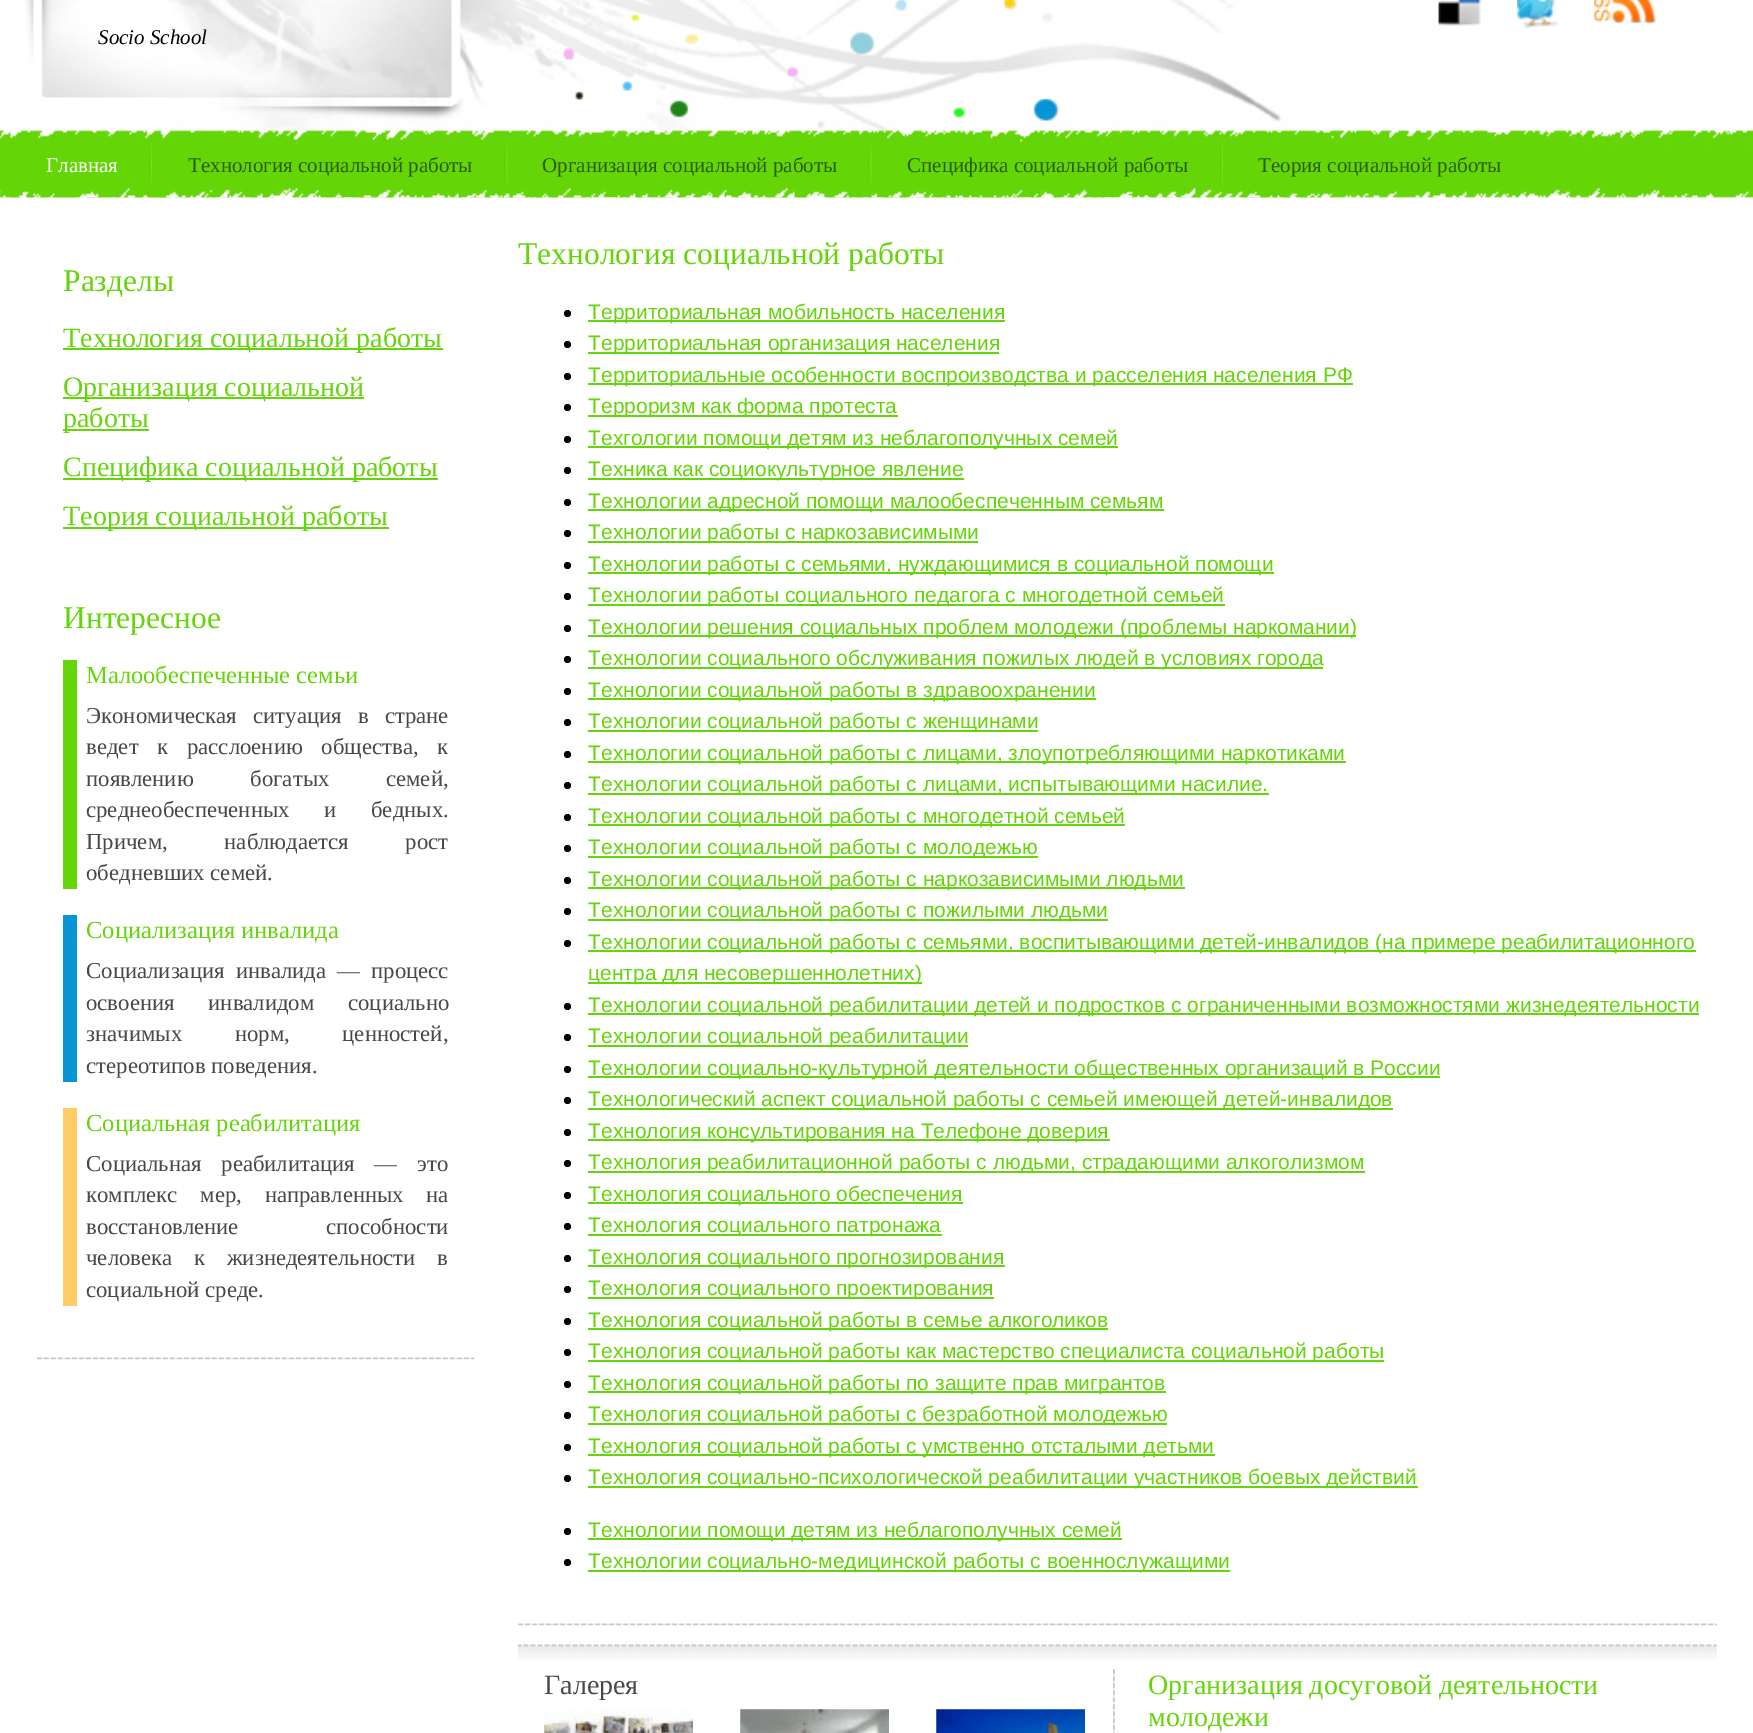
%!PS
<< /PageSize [1753 1733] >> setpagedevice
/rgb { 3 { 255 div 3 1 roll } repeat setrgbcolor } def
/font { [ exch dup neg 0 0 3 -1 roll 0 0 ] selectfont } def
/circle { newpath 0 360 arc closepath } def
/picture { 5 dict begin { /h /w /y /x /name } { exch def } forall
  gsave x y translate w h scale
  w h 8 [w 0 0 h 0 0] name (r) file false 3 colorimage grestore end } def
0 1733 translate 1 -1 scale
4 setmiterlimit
255 255 255 rgb
0 0 1753 1733 rectfill
(img/1.rgb) 0 126 1753 72 picture
(img/2.rgb) 10 0 1324 198 picture
(img/3.rgb) 1438 0 43 26 picture
(img/4.rgb) 1517 0 41 30 picture
(img/5.rgb) 1594 0 62 25 picture
(img/6.rgb) 149 143 3 43 picture
(img/7.rgb) 504 143 4 42 picture
(img/7.rgb) 868 143 4 42 picture
(img/8.rgb) 1220 142 3 44 picture
[
  [63 348 380 2 100 213 8]
  [63 397 301 2 100 213 8]
  [63 429 86 2 100 213 8]
  [63 478 375 2 100 213 8]
  [63 527 326 2 100 213 8]
  [63 660 14 229 100 214 8]
  [63 915 14 167 8 149 214]
  [63 1108 14 198 255 204 102]
] { aload pop rgb rectfill } forall
(img/9.rgb) 36 1357 439 3 picture
0 0 0 rgb
567.5 313.5 3.5 circle fill
100 213 8 rgb
588 320 417 2 rectfill
0 0 0 rgb
567.5 344.5 3.5 circle fill
100 213 8 rgb
588 352 411 2 rectfill
0 0 0 rgb
567.5 376.5 3.5 circle fill
100 213 8 rgb
588 383 765 2 rectfill
0 0 0 rgb
567.5 407.5 3.5 circle fill
100 213 8 rgb
588 415 310 2 rectfill
0 0 0 rgb
567.5 439.5 3.5 circle fill
100 213 8 rgb
588 446 530 2 rectfill
0 0 0 rgb
567.5 470.5 3.5 circle fill
100 213 8 rgb
588 478 376 2 rectfill
0 0 0 rgb
567.5 502.5 3.5 circle fill
100 213 8 rgb
588 509 576 2 rectfill
0 0 0 rgb
567.5 533.5 3.5 circle fill
100 213 8 rgb
588 541 390 2 rectfill
0 0 0 rgb
567.5 565.5 3.5 circle fill
100 213 8 rgb
588 572 686 2 rectfill
0 0 0 rgb
567.5 596.5 3.5 circle fill
100 213 8 rgb
588 604 637 2 rectfill
0 0 0 rgb
567.5 628.5 3.5 circle fill
100 213 8 rgb
588 635 768 2 rectfill
0 0 0 rgb
567.5 659.5 3.5 circle fill
100 213 8 rgb
588 667 735 2 rectfill
0 0 0 rgb
567.5 691.5 3.5 circle fill
100 213 8 rgb
588 698 508 2 rectfill
0 0 0 rgb
567.5 722.5 3.5 circle fill
100 213 8 rgb
588 730 450 2 rectfill
0 0 0 rgb
567.5 754.5 3.5 circle fill
100 213 8 rgb
588 761 758 2 rectfill
0 0 0 rgb
567.5 785.5 3.5 circle fill
100 213 8 rgb
588 793 681 2 rectfill
0 0 0 rgb
567.5 817.5 3.5 circle fill
100 213 8 rgb
588 824 537 2 rectfill
0 0 0 rgb
567.5 848.5 3.5 circle fill
100 213 8 rgb
588 856 450 2 rectfill
0 0 0 rgb
567.5 880.5 3.5 circle fill
100 213 8 rgb
588 887 597 2 rectfill
0 0 0 rgb
567.5 911.5 3.5 circle fill
100 213 8 rgb
588 919 520 2 rectfill
0 0 0 rgb
567.5 943.5 3.5 circle fill
100 213 8 rgb
588 950 1108 2 rectfill
588 982 334 2 rectfill
0 0 0 rgb
567.5 1006.5 3.5 circle fill
100 213 8 rgb
588 1013 1111 2 rectfill
0 0 0 rgb
567.5 1037.5 3.5 circle fill
100 213 8 rgb
588 1045 380 2 rectfill
0 0 0 rgb
567.5 1069.5 3.5 circle fill
100 213 8 rgb
588 1076 852 2 rectfill
0 0 0 rgb
567.5 1100.5 3.5 circle fill
100 213 8 rgb
588 1108 805 2 rectfill
0 0 0 rgb
567.5 1132.5 3.5 circle fill
100 213 8 rgb
588 1139 522 2 rectfill
0 0 0 rgb
567.5 1163.5 3.5 circle fill
100 213 8 rgb
588 1171 777 2 rectfill
0 0 0 rgb
567.5 1195.5 3.5 circle fill
100 213 8 rgb
588 1202 375 2 rectfill
0 0 0 rgb
567.5 1226.5 3.5 circle fill
100 213 8 rgb
588 1234 354 2 rectfill
0 0 0 rgb
567.5 1258.5 3.5 circle fill
100 213 8 rgb
588 1265 417 2 rectfill
0 0 0 rgb
567.5 1289.5 3.5 circle fill
100 213 8 rgb
588 1297 406 2 rectfill
0 0 0 rgb
567.5 1321.5 3.5 circle fill
100 213 8 rgb
588 1328 520 2 rectfill
0 0 0 rgb
567.5 1352.5 3.5 circle fill
100 213 8 rgb
588 1360 796 2 rectfill
0 0 0 rgb
567.5 1384.5 3.5 circle fill
100 213 8 rgb
588 1391 578 2 rectfill
0 0 0 rgb
567.5 1415.5 3.5 circle fill
100 213 8 rgb
588 1423 579 2 rectfill
0 0 0 rgb
567.5 1447.5 3.5 circle fill
100 213 8 rgb
588 1454 627 2 rectfill
0 0 0 rgb
567.5 1478.5 3.5 circle fill
100 213 8 rgb
588 1486 830 2 rectfill
0 0 0 rgb
567.5 1531.5 3.5 circle fill
100 213 8 rgb
588 1538 534 2 rectfill
0 0 0 rgb
567.5 1562.5 3.5 circle fill
100 213 8 rgb
588 1570 642 2 rectfill
(img/10.rgb) 518 1623 1199 3 picture
(img/11.rgb) 518 1644 1199 16 picture
(img/12.rgb) 544 1709 149 24 picture
(img/13.rgb) 740 1709 149 24 picture
(img/14.rgb) 936 1709 149 24 picture
(img/15.rgb) 1113 1669 2 64 picture
/LiberationSerif-Italic 21 font
0 0 0 rgb
98 44 moveto (Socio School) show
/LiberationSerif-Regular 21 font
255 255 255 rgb
46 172 moveto (Главная) show
42 95 0 rgb
[
  [(Технология социальной работы) 188 172]
  [(Организация социальной работы) 542 172]
  [(Специфика социальной работы) 907 172]
  [(Теория социальной работы) 1258 172]
] { aload pop moveto show } forall
/LiberationSerif-Regular 31.5 font
100 213 8 rgb
63 291 moveto (Разделы) show
/LiberationSerif-Regular 28 font
[
  [(Технология социальной работы) 63 347]
  [(Организация социальной) 63 396]
  [(работы) 63 427]
  [(Специфика социальной работы) 63 476]
  [(Теория социальной работы) 63 525]
] { aload pop moveto show } forall
/LiberationSerif-Regular 31.5 font
63 628 moveto (Интересное) show
/LiberationSerif-Regular 24.5 font
86 683 moveto (Малообеспеченные семьи) show
/LiberationSerif-Regular 22.75 font
72 72 72 rgb
86 723 moveto 10.5 0 32 (Экономическая ситуация в стране) widthshow
86 754 moveto 13 0 32 (ведет к расслоению общества, к) widthshow
86 786 moveto 51 0 32 (появлению богатых семей,) widthshow
86 817 moveto 29 0 32 (среднеобеспеченных и бедных.) widthshow
86 849 moveto 51 0 32 (Причем, наблюдается рост) widthshow
86 880 moveto (обедневших семей.) show
/LiberationSerif-Regular 24.5 font
100 213 8 rgb
86 938 moveto (Социализация инвалида) show
/LiberationSerif-Regular 22.75 font
72 72 72 rgb
86 978 moveto 5.5 0 32 (Социализация инвалида — процесс) widthshow
86 1010 moveto 28 0 32 (освоения инвалидом социально) widthshow
86 1041 moveto 47 0 32 (значимых норм, ценностей,) widthshow
86 1073 moveto (стереотипов поведения.) show
/LiberationSerif-Regular 24.5 font
100 213 8 rgb
86 1131 moveto (Социальная реабилитация) show
/LiberationSerif-Regular 22.75 font
72 72 72 rgb
86 1171 moveto 14 0 32 (Социальная реабилитация — это) widthshow
86 1202 moveto 17 0 32 (комплекс мер, направленных на) widthshow
86 1234 moveto 82 0 32 (восстановление способности) widthshow
86 1265 moveto 16 0 32 (человека к жизнедеятельности в) widthshow
86 1297 moveto (социальной среде.) show
/LiberationSerif-Regular 31.5 font
100 213 8 rgb
518 264 moveto (Технология социальной работы) show
/LiberationSans-Regular 21 font
[
  [(Территориальная мобильность населения) 588 319]
  [(Территориальная организация населения) 588 350]
  [(Территориальные особенности воспроизводства и расселения населения РФ) 588 382]
  [(Терроризм как форма протеста) 588 413]
  [(Техгологии помощи детям из неблагополучных семей) 588 445]
  [(Техника как социокультурное явление) 588 476]
  [(Технологии адресной помощи малообеспеченным семьям) 588 508]
  [(Технологии работы с наркозависимыми) 588 539]
  [(Технологии работы с семьями, нуждающимися в социальной помощи) 588 571]
  [(Технологии работы социального педагога с многодетной семьей) 588 602]
  [(Технологии решения социальных проблем молодежи \(проблемы наркомании\)) 588 634]
  [(Технологии социального обслуживания пожилых людей в условиях города) 588 665]
  [(Технологии социальной работы в здравоохранении) 588 697]
  [(Технологии социальной работы с женщинами) 588 728]
  [(Технологии социальной работы с лицами, злоупотребляющими наркотиками) 588 760]
  [(Технологии социальной работы с лицами, испытывающими насилие.) 588 791]
  [(Технологии социальной работы с многодетной семьей) 588 823]
  [(Технологии социальной работы с молодежью) 588 854]
  [(Технологии социальной работы с наркозависимыми людьми) 588 886]
  [(Технологии социальной работы с пожилыми людьми) 588 917]
  [(Технологии социальной работы с семьями, воспитывающими детей-инвалидов \(на примере реабилитационного) 588 949]
  [(центра для несовершеннолетних\)) 588 980]
  [(Технологии социальной реабилитации детей и подростков с ограниченными возможностями жизнедеятельности) 588 1012]
  [(Технологии социальной реабилитации) 588 1043]
  [(Технологии социально-культурной деятельности общественных организаций в России) 588 1075]
  [(Технологический аспект социальной работы с семьей имеющей детей-инвалидов) 588 1106]
  [(Технология консультирования на Телефоне доверия) 588 1138]
  [(Технология реабилитационной работы с людьми, страдающими алкоголизмом) 588 1169]
  [(Технология социального обеспечения) 588 1201]
  [(Технология социального патронажа) 588 1232]
  [(Технология социального прогнозирования) 588 1264]
  [(Технология социального проектирования) 588 1295]
  [(Технология социальной работы в семье алкоголиков) 588 1327]
  [(Технология социальной работы как мастерство специалиста социальной работы) 588 1358]
  [(Технология социальной работы по защите прав мигрантов) 588 1390]
  [(Технология социальной работы с безработной молодежью) 588 1421]
  [(Технология социальной работы с умственно отсталыми детьми) 588 1453]
  [(Технология социально-психологической реабилитации участников боевых действий) 588 1484]
  [(Технологии помощи детям из неблагополучных семей) 588 1537]
  [(Технологии социально-медицинской работы с военнослужащими) 588 1568]
] { aload pop moveto show } forall
/LiberationSerif-Regular 28 font
72 72 72 rgb
544 1694 moveto (Галерея) show
100 213 8 rgb
1148 1694 moveto (Организация досуговой деятельности) show
1148 1726 moveto (молодежи) show
showpage
